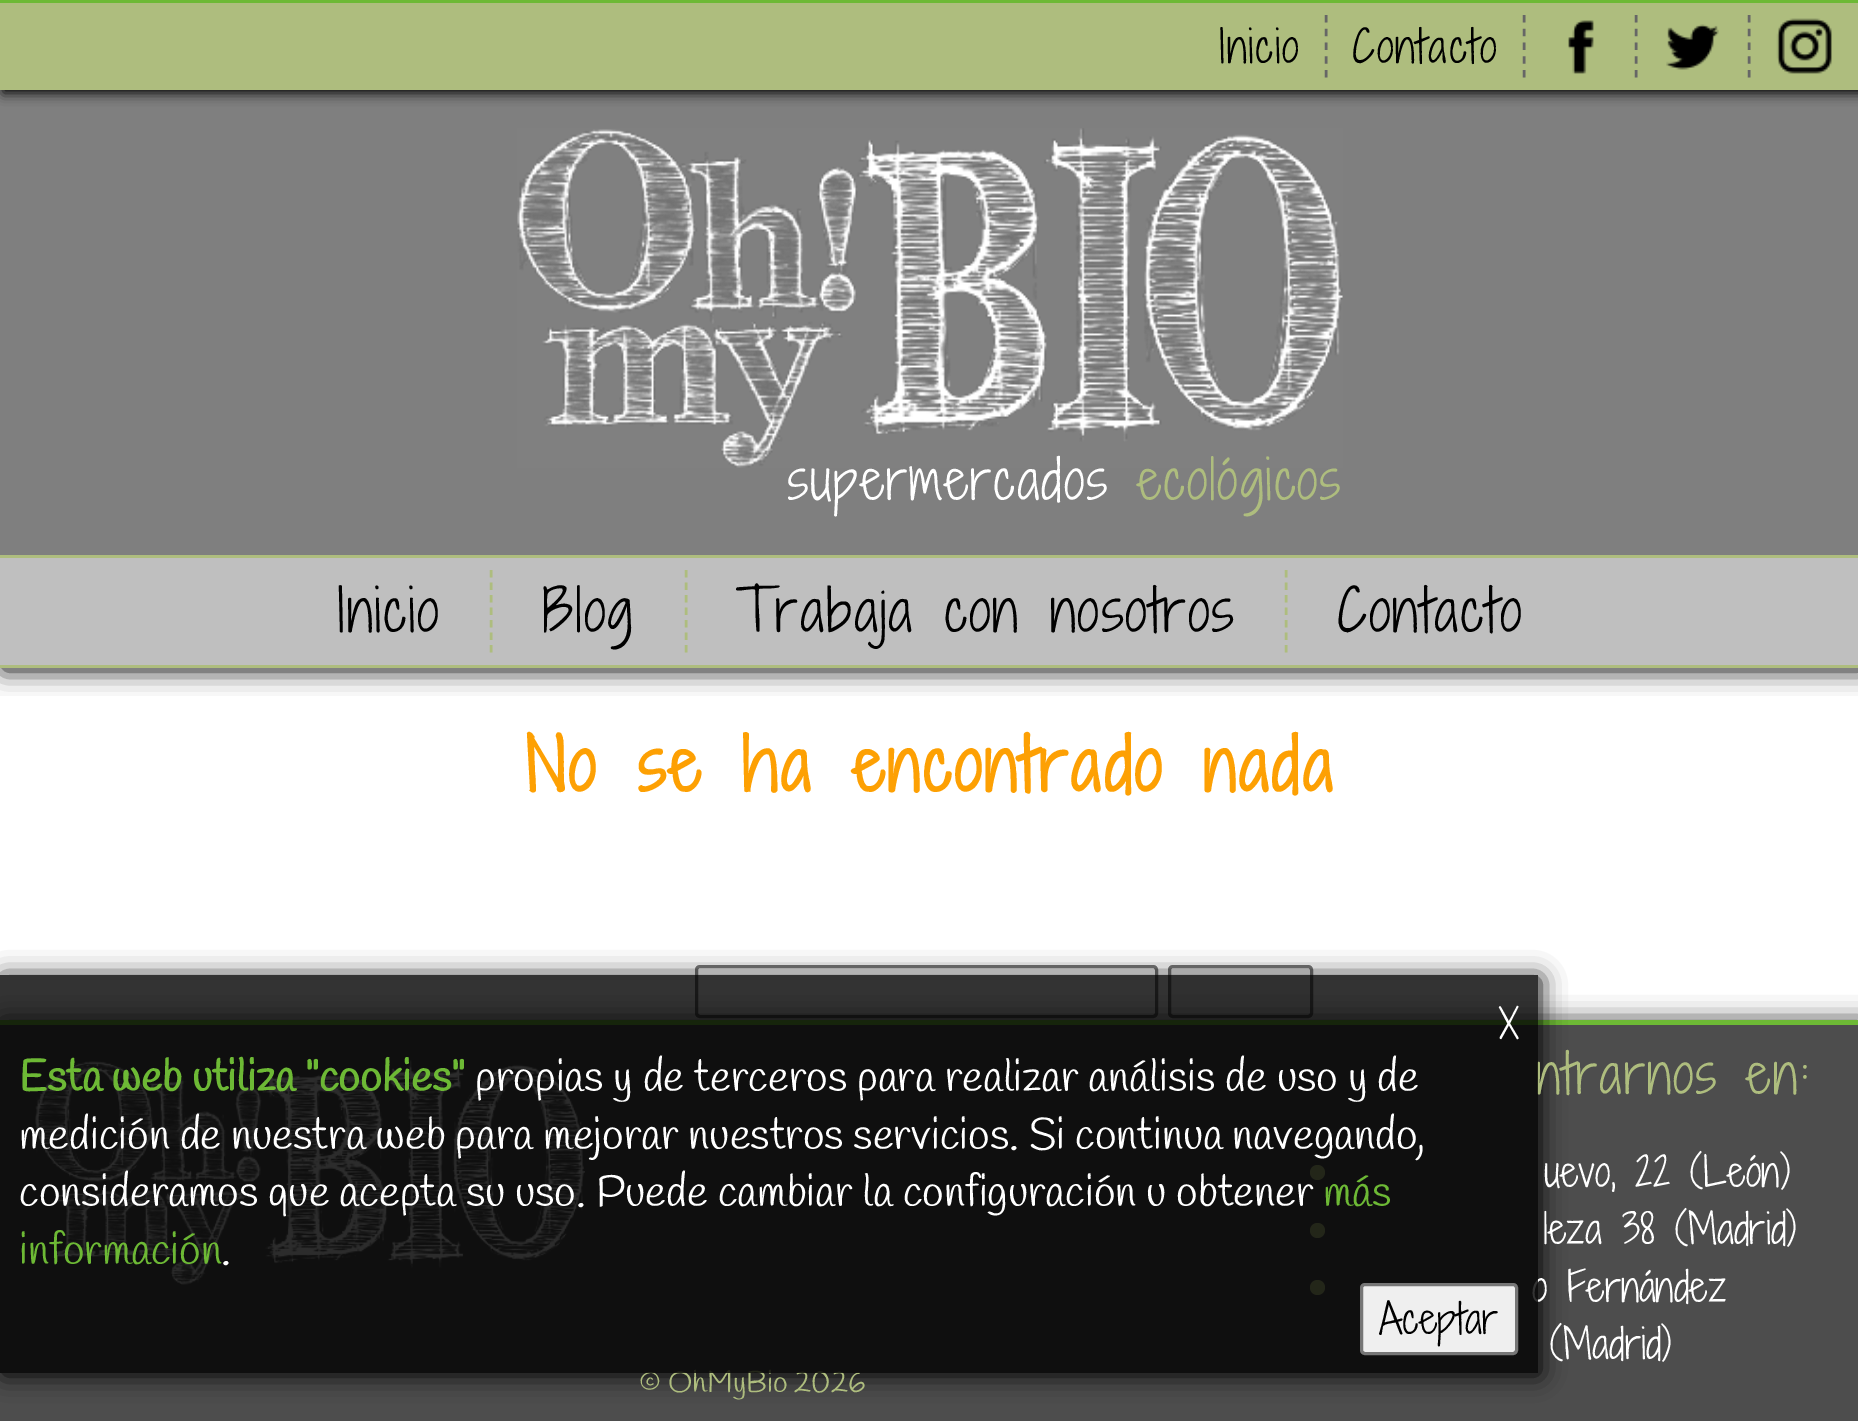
%!PS
<< /PageSize [1858 1421] /PageUsesTransparency true >> setpagedevice
/rgb { 3 { 255 div 3 1 roll } repeat setrgbcolor } def
/font { [ exch dup neg 0 0 3 -1 roll 0 0 ] selectfont } def
/alpha { dup .setfillconstantalpha .setstrokeconstantalpha } def
/circle { newpath 0 360 arc closepath } def
/roundrect { 5 dict begin { /r /h /w /y /x } { exch def } forall
  x r add y moveto x w add y 2 copy h add r arct x w add y h add x 1 index r arct
  x y h add x y r arct x y 2 copy exch w add exch r arct closepath end } def
/shadow { 12 dict begin { /a /b /q /h /w /y /x } { exch def } forall gsave /was 0 def
  9 -2 -9 { dup b mul 4 div /e exch def 1 sub .425 mul 2.718 exch exp 1 add a .99 .min exch div /now exch def
    1 1 now sub 1 was sub div sub alpha /was now def
    w h .min e 2 mul add 0 gt { x e sub y e sub w e 2 mul add h e 2 mul add
      q e add b .6 mul add w h .min 2 div e add .min 0 .max roundrect fill } if } for grestore end } def
/picture { 5 dict begin { /h /w /y /x /name } { exch def } forall
  gsave x y translate w h scale
  w h 8 [w 0 0 h 0 0] name (r) file false 3 colorimage grestore end } def
0 .pushpdf14devicefilter
0 1421 translate 1 -1 scale
4 setmiterlimit
255 255 255 rgb
0 0 1858 1421 rectfill
gsave
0 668 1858 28 rectclip
0 0 0 rgb
3 3 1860 667 0 12.5 1 shadow
grestore
0.5 alpha
0 0 0 rgb
0 90 1858 575 rectfill
1 alpha
3 3 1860 90 0 6 1 shadow
174 189 126 rgb
0 3 1858 87 rectfill
109 185 53 rgb
0 0 1858 3 rectfill
102 102 102 rgb
2.5 setlinewidth
[7.5 6.25] 0 setdash
1326 15 moveto 1326 77.5 lineto stroke
1524 15 moveto 1524 77.5 lineto stroke
(img/1.rgb) 1568 20 26 54 picture
1636 15 moveto 1636 77.5 lineto stroke
(img/2.rgb) 1666 24 53 46 picture
1749 15 moveto 1749 77.5 lineto stroke
(img/3.rgb) 1776 18 56 56 picture
(img/4.rgb) 517 128 826 340 picture
0.5 alpha
[
  [0 558 1858 107 255 255 255]
] { aload pop rgb rectfill } forall
1 alpha
[
  [0 555 1858 3 174 189 126]
  [0 665 1858 3 174 189 126]
] { aload pop rgb rectfill } forall
[7.5 5] 0 setdash
491 570 moveto 491 652.5 lineto stroke
686 570 moveto 686 652.5 lineto stroke
1286 570 moveto 1286 652.5 lineto stroke
118 118 118 rgb
3 setlinewidth
[] 0 setdash
696.5 966.5 460 50 3.5 roundrect stroke
239 239 239 rgb
1169.5 966.5 142 50 3.5 roundrect gsave fill grestore
118 118 118 rgb
stroke
0 0 0 rgb
3 1023 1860 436 0 12.5 1 shadow
77 77 77 rgb
0 1025 1858 396 rectfill
109 185 53 rgb
0 1020 1858 5 rectfill
(img/5.rgb) 35 1060 550 225 picture
174 189 126 rgb
1317.5 1172.5 7.5 circle fill
1317.5 1230.5 7.5 circle fill
1317.5 1287.5 7.5 circle fill
gsave
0 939 moveto 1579 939 lineto 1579 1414 lineto 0 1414 lineto closepath 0 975 moveto 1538 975 lineto 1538 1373 lineto 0 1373 lineto closepath eoclip newpath
0 0 0 rgb
3 978 1537 397 0 12.5 1 shadow
grestore
/ShadowsIntoLightTwo-Regular 43.5 font
0 0 0 rgb
1219 63 moveto 1.7 0 (Inicio) ashow
1352 63 moveto 1.7 0 (Contacto) ashow
/ShadowsIntoLightTwo-Regular 53.25 font
255 255 255 rgb
787 500 moveto 1.7 0 (supermercados) ashow
174 189 126 rgb
1137 500 moveto 1.7 0 (ecológicos) ashow
/ShadowsIntoLightTwo-Regular 56.75 font
0 0 0 rgb
337 632 moveto 1.7 0 (Inicio) ashow
542 632 moveto 1.7 0 (Blog) ashow
736 632 moveto 1.7 0 (Trabaja con nosotros) ashow
1337 632 moveto 1.7 0 (Contacto) ashow
/ShadowsIntoLightTwo-Bold 70 font
253 160 3 rgb
525 792 moveto 3.3 0 (No se ha encontrado nada) ashow
/ShadowsIntoLightTwo-Regular 53.25 font
174 189 126 rgb
1536 1094 moveto 1.7 0 (ntrarnos en:) ashow
/ShadowsIntoLightTwo-Regular 40 font
255 255 255 rgb
[
  [(uevo, 22 \(León\)) 1544 1187]
  [(leza 38 \(Madrid\)) 1543 1244]
  [(o Fernández) 1532 1302]
  [(\(Madrid\)) 1550 1359]
] { aload pop moveto show } forall
/Handlee-Regular 30 font
174 189 126 rgb
639 1392 moveto (© OhMyBio 2026) show
0.8 alpha
0 0 0 rgb
0 975 1538 398 rectfill
/ShadowsIntoLightTwo-Regular 40 font
1 alpha
255 255 255 rgb
1499 1039 moveto (X) show
/Handlee-Bold 44 font
109 185 53 rgb
19 1091 moveto (Esta web utiliza "cookies") show
/Handlee-Regular 44 font
255 255 255 rgb
[
  [(propias y de terceros para realizar análisis de uso y de) 475 1091]
  [(medición de nuestra web para mejorar nuestros servicios. Si continua navegando,) 19 1149]
  [(consideramos que acepta su uso. Puede cambiar la configuración u obtener) 19 1206]
] { aload pop moveto show } forall
109 185 53 rgb
1323 1206 moveto (más) show
19 1264 moveto (información) show
255 255 255 rgb
221 1264 moveto (.) show
239 239 239 rgb
1361.5 1284.5 155 69 3.5 roundrect gsave fill grestore
118 118 118 rgb
stroke
/ShadowsIntoLightTwo-Regular 40 font
0 0 0 rgb
1379 1334 moveto (Aceptar) show
.poppdf14devicefilter showpage
